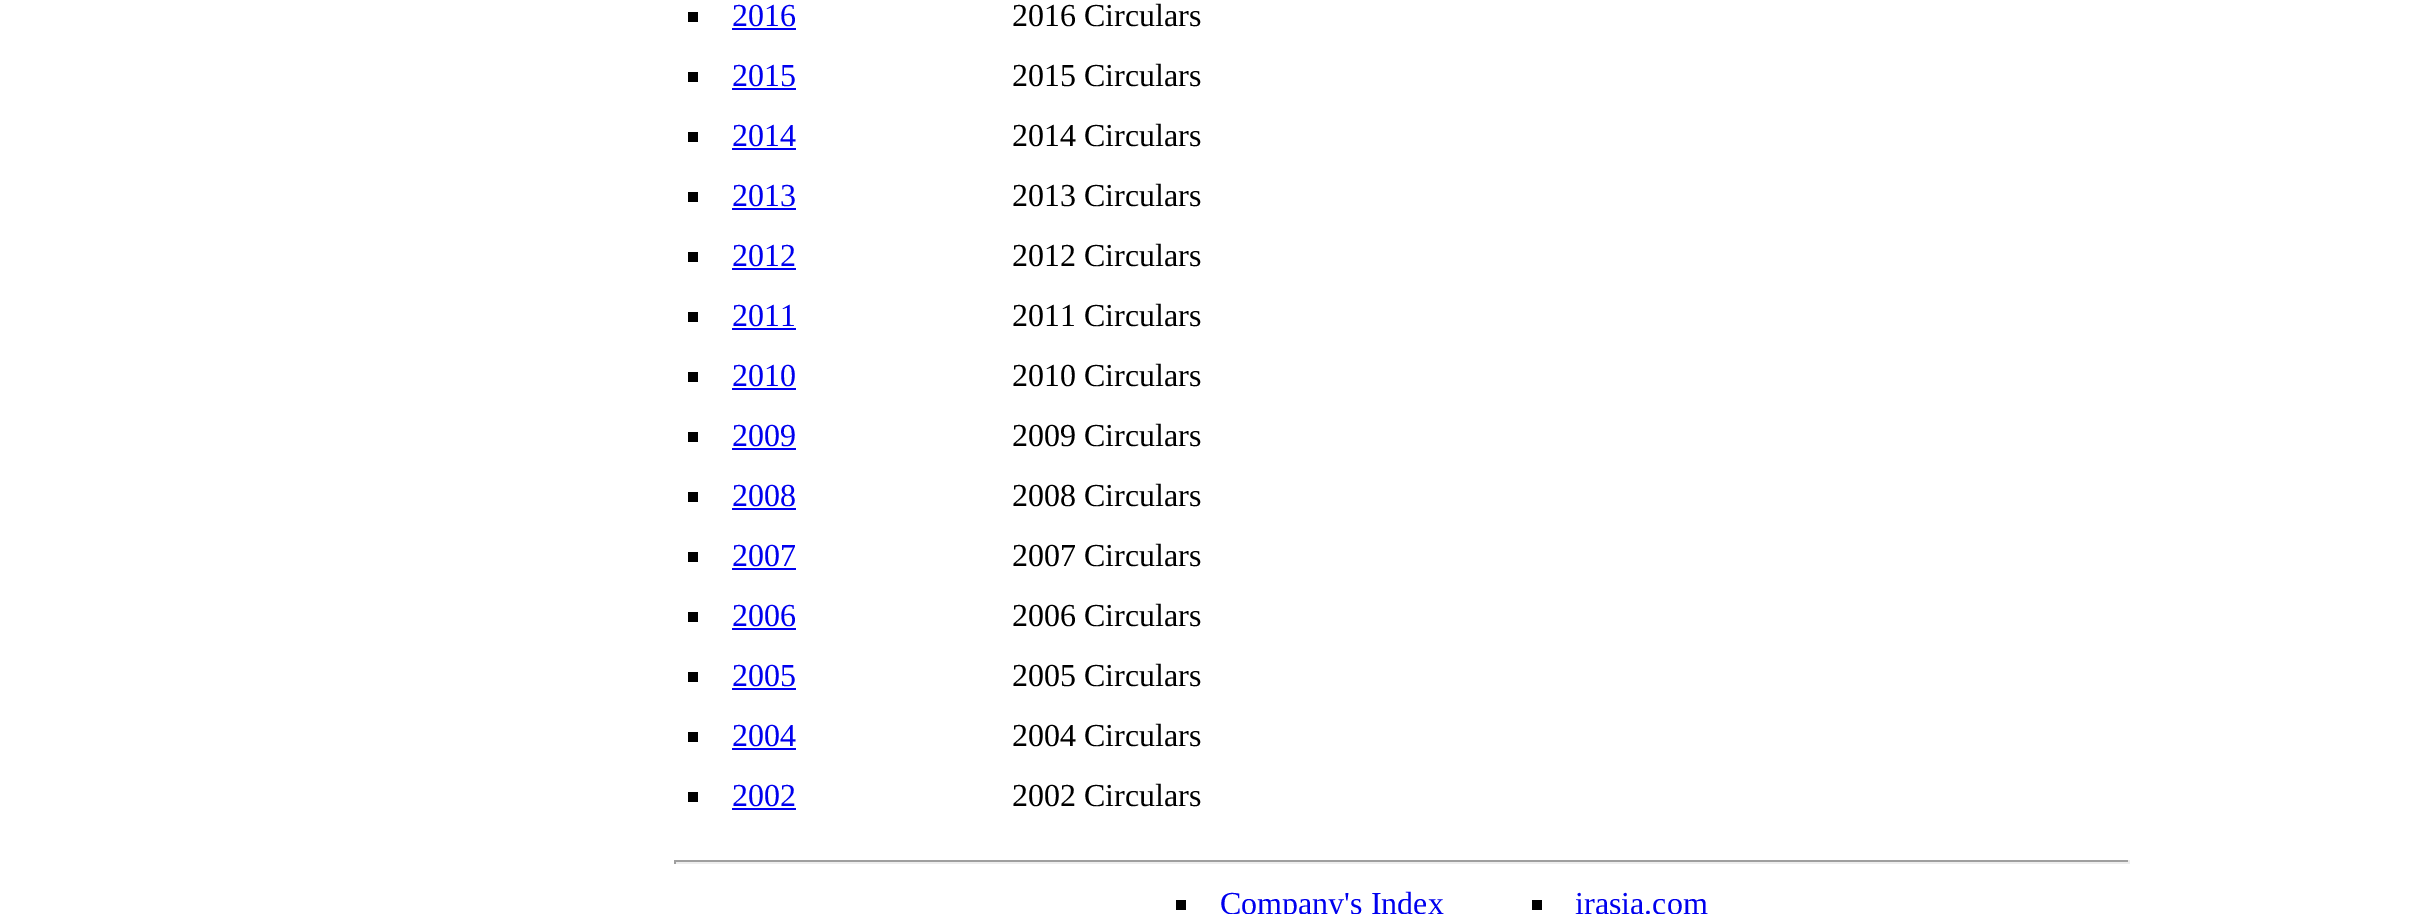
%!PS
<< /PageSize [2412 914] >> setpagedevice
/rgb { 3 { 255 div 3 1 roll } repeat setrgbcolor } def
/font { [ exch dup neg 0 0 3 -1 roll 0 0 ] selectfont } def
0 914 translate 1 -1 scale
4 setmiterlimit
255 255 255 rgb
0 0 2412 914 rectfill
[
  [688 12 10 10 0 0 0]
  [732 28 64 2 0 0 238]
  [688 72 10 10 0 0 0]
  [732 88 64 2 0 0 238]
  [688 132 10 10 0 0 0]
  [732 148 64 2 0 0 238]
  [688 192 10 10 0 0 0]
  [732 208 64 2 0 0 238]
  [688 252 10 10 0 0 0]
  [732 268 64 2 0 0 238]
  [688 312 10 10 0 0 0]
  [732 328 64 2 0 0 238]
  [688 372 10 10 0 0 0]
  [732 388 64 2 0 0 238]
  [688 432 10 10 0 0 0]
  [732 448 64 2 0 0 238]
  [688 492 10 10 0 0 0]
  [732 508 64 2 0 0 238]
  [688 552 10 10 0 0 0]
  [732 568 64 2 0 0 238]
  [688 612 10 10 0 0 0]
  [732 628 64 2 0 0 238]
  [688 672 10 10 0 0 0]
  [732 688 64 2 0 0 238]
  [688 732 10 10 0 0 0]
  [732 748 64 2 0 0 238]
  [688 792 10 10 0 0 0]
  [732 808 64 2 0 0 238]
  [674 860 1456 2 159 159 159]
  [2128 860 2 4 238 238 238]
  [674 862 1456 2 238 238 238]
  [674 860 2 4 159 159 159]
  [1176 900 10 10 0 0 0]
  [1532 900 10 10 0 0 0]
] { aload pop rgb rectfill } forall
/LiberationSerif-Regular 32 font
0 0 238 rgb
732 26 moveto (2016) show
0 0 0 rgb
1012 26 moveto (2016 Circulars) show
0 0 238 rgb
732 86 moveto (2015) show
0 0 0 rgb
1012 86 moveto (2015 Circulars) show
0 0 238 rgb
732 146 moveto (2014) show
0 0 0 rgb
1012 146 moveto (2014 Circulars) show
0 0 238 rgb
732 206 moveto (2013) show
0 0 0 rgb
1012 206 moveto (2013 Circulars) show
0 0 238 rgb
732 266 moveto (2012) show
0 0 0 rgb
1012 266 moveto (2012 Circulars) show
0 0 238 rgb
732 326 moveto (2011) show
0 0 0 rgb
1012 326 moveto (2011 Circulars) show
0 0 238 rgb
732 386 moveto (2010) show
0 0 0 rgb
1012 386 moveto (2010 Circulars) show
0 0 238 rgb
732 446 moveto (2009) show
0 0 0 rgb
1012 446 moveto (2009 Circulars) show
0 0 238 rgb
732 506 moveto (2008) show
0 0 0 rgb
1012 506 moveto (2008 Circulars) show
0 0 238 rgb
732 566 moveto (2007) show
0 0 0 rgb
1012 566 moveto (2007 Circulars) show
0 0 238 rgb
732 626 moveto (2006) show
0 0 0 rgb
1012 626 moveto (2006 Circulars) show
0 0 238 rgb
732 686 moveto (2005) show
0 0 0 rgb
1012 686 moveto (2005 Circulars) show
0 0 238 rgb
732 746 moveto (2004) show
0 0 0 rgb
1012 746 moveto (2004 Circulars) show
0 0 238 rgb
732 806 moveto (2002) show
0 0 0 rgb
1012 806 moveto (2002 Circulars) show
0 0 238 rgb
1220 914 moveto (Company's Index) show
1575 914 moveto (irasia.com) show
showpage
